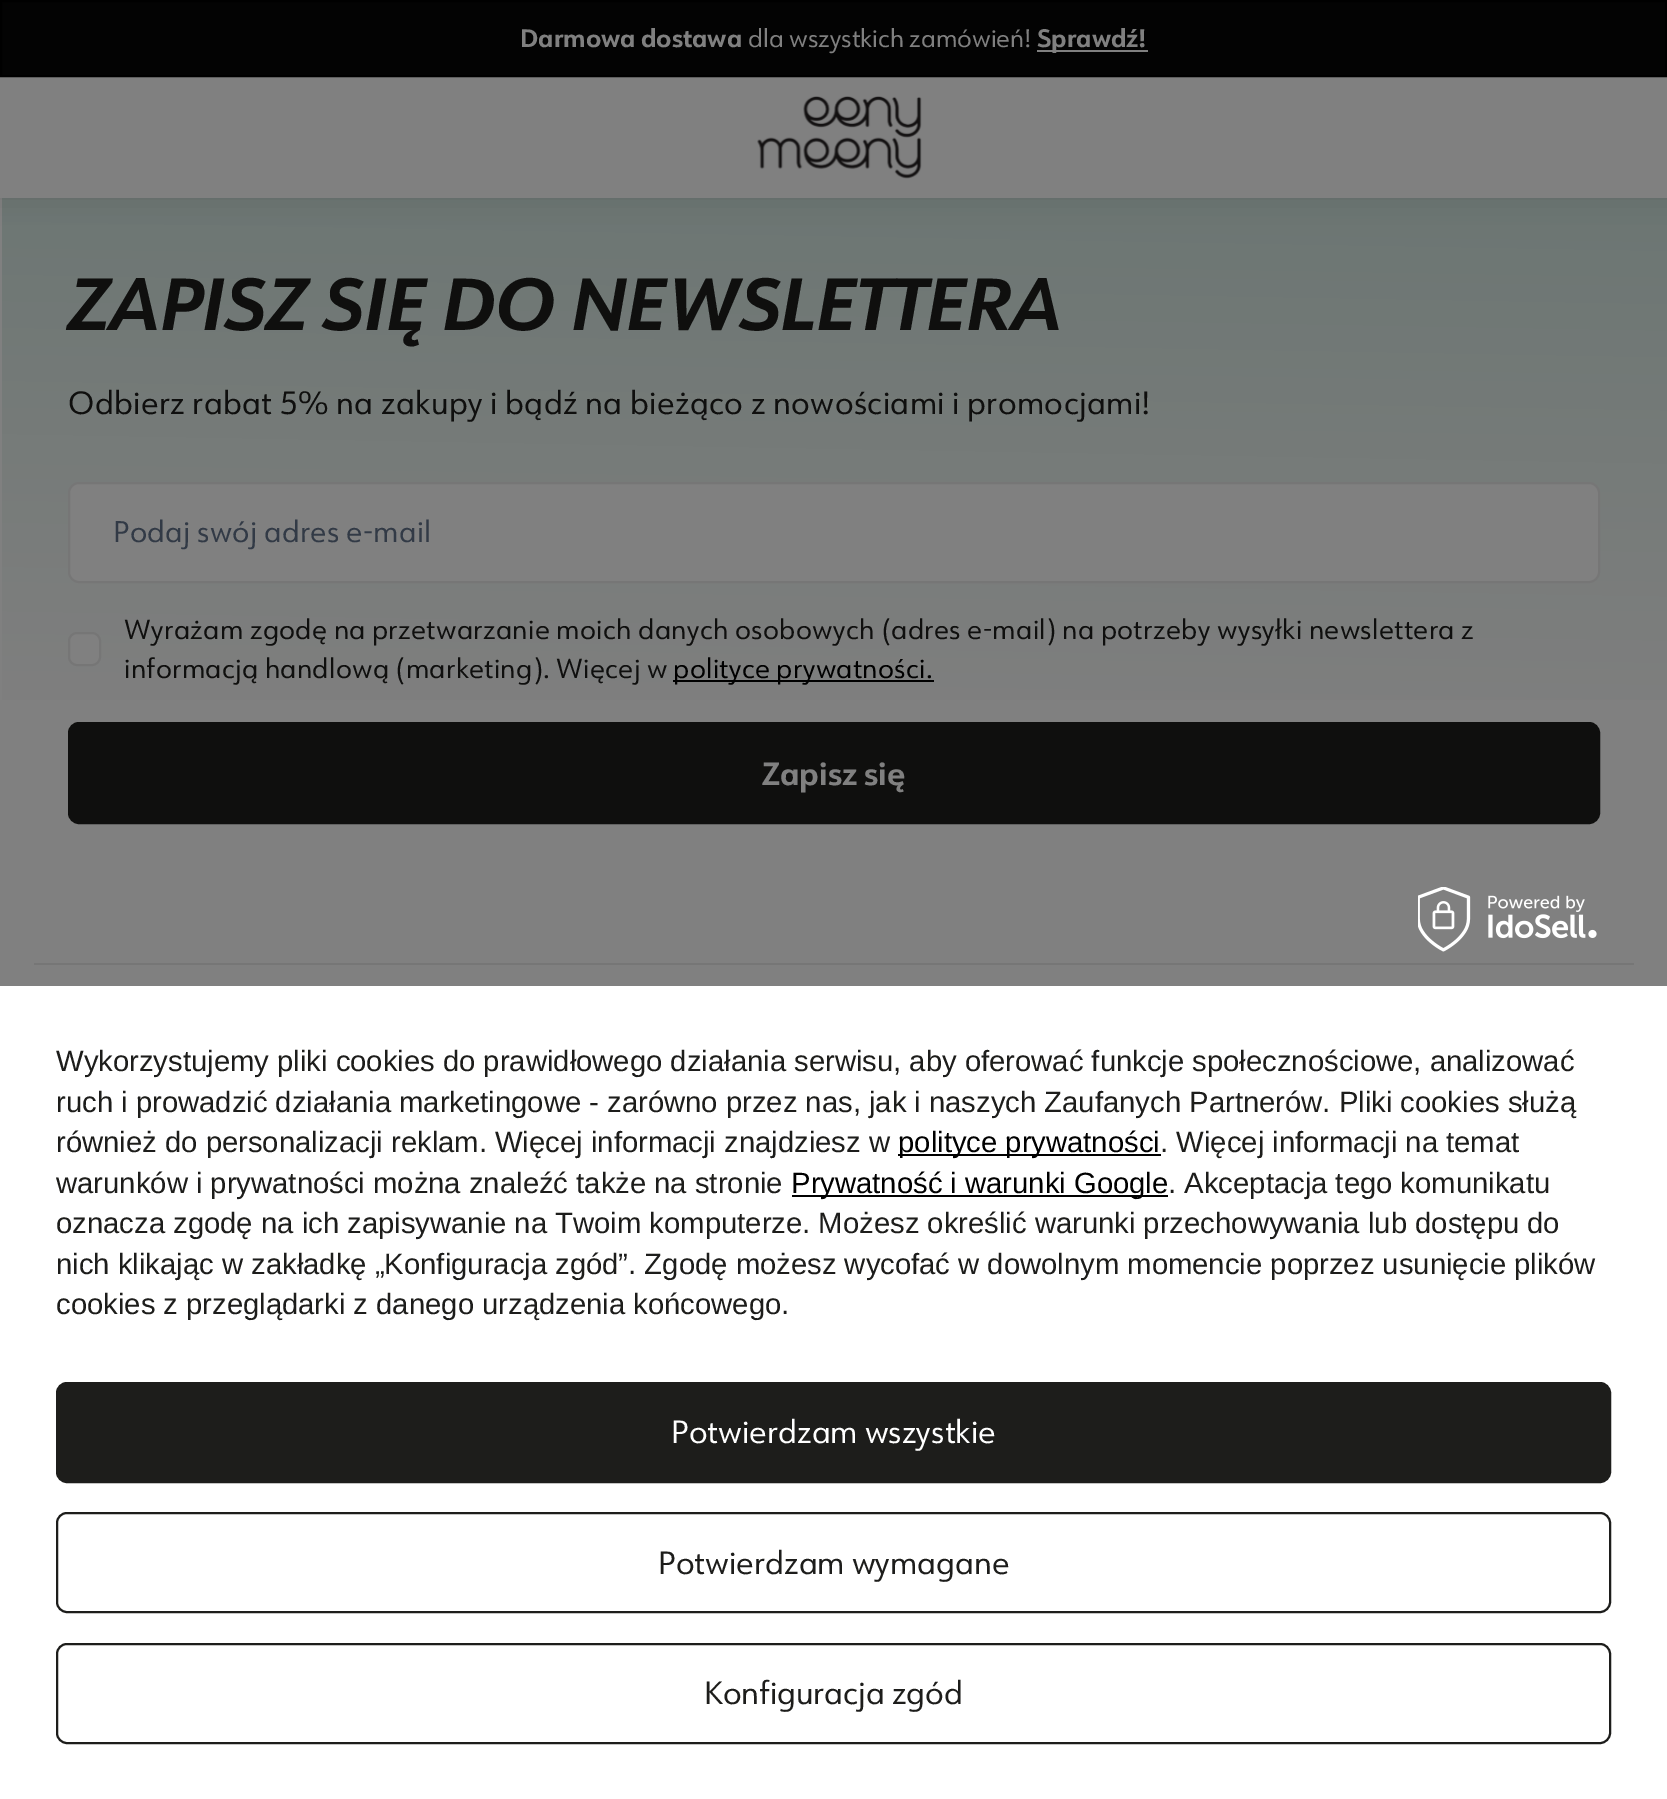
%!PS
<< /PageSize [1667 1799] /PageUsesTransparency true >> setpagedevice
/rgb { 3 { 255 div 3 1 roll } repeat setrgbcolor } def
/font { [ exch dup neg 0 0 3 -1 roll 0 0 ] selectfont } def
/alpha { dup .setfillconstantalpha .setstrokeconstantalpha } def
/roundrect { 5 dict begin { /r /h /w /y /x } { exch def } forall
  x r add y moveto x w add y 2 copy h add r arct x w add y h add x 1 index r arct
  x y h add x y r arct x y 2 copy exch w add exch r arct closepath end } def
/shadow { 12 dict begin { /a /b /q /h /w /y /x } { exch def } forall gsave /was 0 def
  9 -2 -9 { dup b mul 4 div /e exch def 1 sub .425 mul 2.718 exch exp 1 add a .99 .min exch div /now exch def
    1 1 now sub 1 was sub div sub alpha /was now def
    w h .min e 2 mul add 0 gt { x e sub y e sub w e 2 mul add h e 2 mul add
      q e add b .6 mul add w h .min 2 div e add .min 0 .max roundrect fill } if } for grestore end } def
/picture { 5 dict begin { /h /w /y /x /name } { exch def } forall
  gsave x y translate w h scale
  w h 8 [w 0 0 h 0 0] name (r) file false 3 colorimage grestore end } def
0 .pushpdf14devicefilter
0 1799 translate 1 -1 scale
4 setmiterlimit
128 128 128 rgb
0 0 1667 1799 rectfill
gsave 2 198 moveto 1667 198 lineto 1667 700 lineto 2 700 lineto closepath clip newpath
<< /ShadingType 2 /ColorSpace /DeviceRGB /Coords [828 905 841 172] /Extend [true true] /Function << /FunctionType 3 /Domain [0 1] /Functions [<< /FunctionType 2 /Domain [0 1] /C0 [0.502 0.502 0.502] /C1 [0.502 0.502 0.502] /N 1 >> << /FunctionType 2 /Domain [0 1] /C0 [0.502 0.502 0.502] /C1 [0.424 0.463 0.451] /N 1 >>] /Bounds [0.2] /Encode [0 1 0 1] >> >> shfill grestore
0 0 0 rgb
-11 -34 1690 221 0 17 0.21 shadow
128 128 128 rgb
0 77 1667 121 rectfill
3 3 3 rgb
1 1 moveto 1666 1 lineto 1666 76 lineto 1 76 lineto closepath gsave fill grestore
0 0 0 rgb
2 setlinewidth
stroke
128 128 128 rgb
1037 50 111 2 rectfill
(img/1.rgb) 757 96 165 83 picture
69 483 1530 99 10 roundrect gsave fill grestore
118 118 118 rgb
stroke
128 128 128 rgb
69 633 31 32 8 roundrect gsave fill grestore
118 118 118 rgb
stroke
0 0 0 rgb
673 680 261 2 rectfill
15 15 14 rgb
69 723 1530 100 10 roundrect gsave fill grestore
stroke
118 118 118 rgb
34 963 1600 2 rectfill
255 255 255 rgb
0 986 1667 813 rectfill
(img/2.rgb) 1418 887 179 65 picture
0 0 0 rgb
898 1154 263 2 rectfill
792 1195 376 2 rectfill
29 29 27 rgb
57 1383 1553 99 10 roundrect gsave fill grestore
stroke
57 1513 1553 99 10 roundrect stroke
57 1644 1553 99 10 roundrect stroke
/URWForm-Bold 24.75 font
128 128 128 rgb
520 47 moveto (Darmowa dostawa) show
/URWForm-Regular 24.75 font
748 47 moveto (dla wszystkich zamówień!) show
/URWForm-Bold 24.75 font
1037 47 moveto (Sprawdź!) show
/URWForm-BoldItalic 72 font
15 15 14 rgb
68 330 moveto (ZAPISZ SIĘ DO NEWSLETTERA) show
/URWForm-Regular 31.5 font
68 414 moveto 0.35 0 (Odbierz rabat 5% na zakupy i bądź na bieżąco z nowościami i promocjami!) ashow
/URWForm-Regular 29.25 font
50 58 70 rgb
113 542 moveto 0.3 0 (Podaj swój adres e-mail) ashow
/URWForm-Regular 27 font
15 15 14 rgb
124 639 moveto 0.32 0 (Wyrażam zgodę na przetwarzanie moich danych osobowych \(adres e-mail\) na potrzeby wysyłki newslettera z) ashow
124 678 moveto 0.32 0 (informacją handlową \(marketing\). Więcej w) ashow
0 0 0 rgb
673 678 moveto 0.32 0 (polityce prywatności.) ashow
/URWForm-Bold 31.5 font
128 128 128 rgb
762 785 moveto (Zapisz się) show
/LiberationSans-Regular 29.25 font
29 29 27 rgb
[
  [(Wykorzystujemy pliki cookies do prawidłowego działania serwisu, aby oferować funkcje społecznościowe, analizować) 56 1071]
  [(ruch i prowadzić działania marketingowe - zarówno przez nas, jak i naszych Zaufanych Partnerów. Pliki cookies służą) 56 1112]
  [(również do personalizacji reklam. Więcej informacji znajdziesz w) 56 1152]
] { aload pop moveto show } forall
0 0 0 rgb
898 1152 moveto (polityce prywatności) show
29 29 27 rgb
1160 1152 moveto (. Więcej informacji na temat) show
56 1193 moveto (warunków i prywatności można znaleźć także na stronie) show
0 0 0 rgb
791 1193 moveto (Prywatność i warunki Google) show
29 29 27 rgb
[
  [(. Akceptacja tego komunikatu) 1168 1193]
  [(oznacza zgodę na ich zapisywanie na Twoim komputerze. Możesz określić warunki przechowywania lub dostępu do) 56 1233]
  [(nich klikając w zakładkę „Konfiguracja zgód”. Zgodę możesz wycofać w dowolnym momencie poprzez usunięcie plików) 56 1274]
  [(cookies z przeglądarki z danego urządzenia końcowego.) 56 1314]
] { aload pop moveto show } forall
/URWForm-Regular 31.5 font
255 255 255 rgb
671 1443 moveto (Potwierdzam wszystkie) show
29 29 27 rgb
658 1574 moveto (Potwierdzam wymagane) show
704 1704 moveto (Konfiguracja zgód) show
.poppdf14devicefilter showpage
